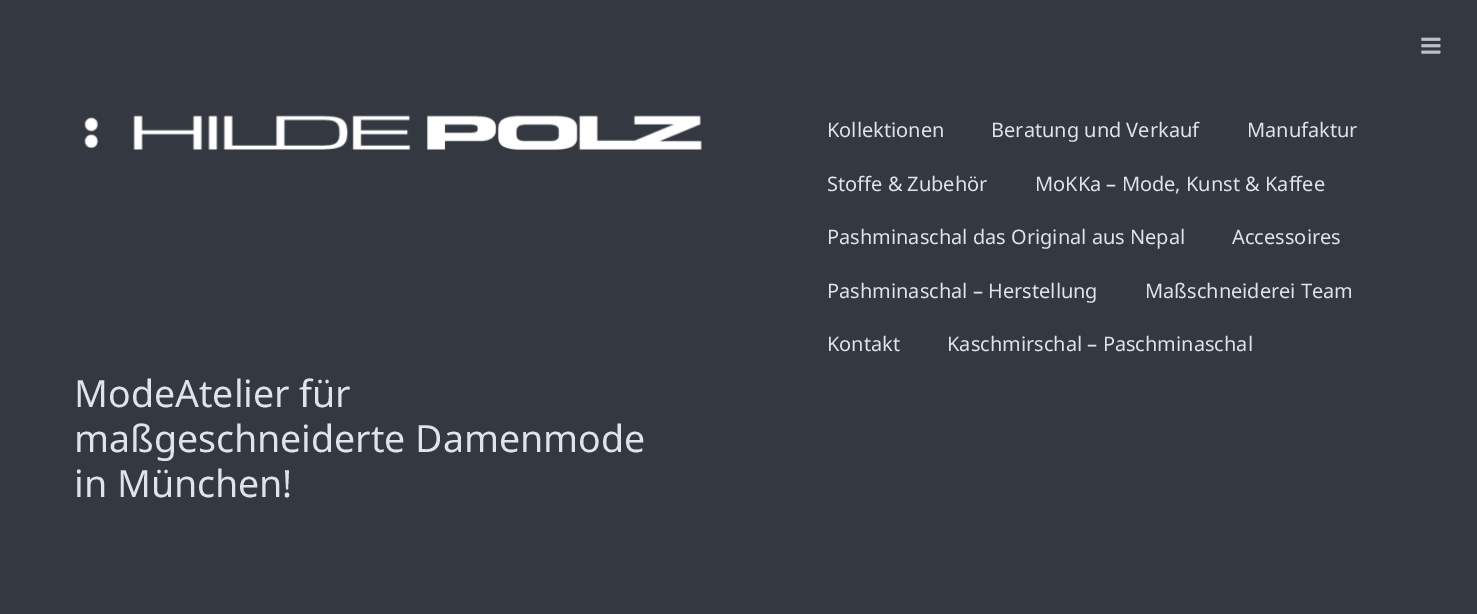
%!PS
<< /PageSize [1477 614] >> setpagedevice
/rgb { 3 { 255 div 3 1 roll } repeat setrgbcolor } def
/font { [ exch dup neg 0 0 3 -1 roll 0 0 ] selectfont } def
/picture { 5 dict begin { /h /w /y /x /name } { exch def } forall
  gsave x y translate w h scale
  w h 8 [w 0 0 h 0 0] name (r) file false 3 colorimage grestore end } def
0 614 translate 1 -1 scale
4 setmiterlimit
52 57 65 rgb
0 0 1477 614 rectfill
(img/1.rgb) 1421 37 20 17 picture
(img/2.rgb) 84 115 618 35 picture
/NotoSans-Regular 20 font
222 229 234 rgb
[
  [(Kollektionen) 827 137]
  [(Beratung und Verkauf) 991 137]
  [(Manufaktur) 1247 137]
  [(Stoffe & Zubehör) 827 191]
  [(MoKKa – Mode, Kunst & Kaffee) 1035 191]
  [(Pashminaschal das Original aus Nepal) 827 244]
  [(Accessoires) 1232 244]
  [(Pashminaschal – Herstellung) 827 298]
  [(Maßschneiderei Team) 1145 298]
  [(Kontakt) 827 351]
  [(Kaschmirschal – Paschminaschal) 947 351]
] { aload pop moveto show } forall
/NotoSans-Regular 37.5 font
[
  [(ModeAtelier für) 74 407]
  [(maßgeschneiderte Damenmode) 74 452]
  [(in München!) 74 497]
] { aload pop moveto show } forall
showpage
